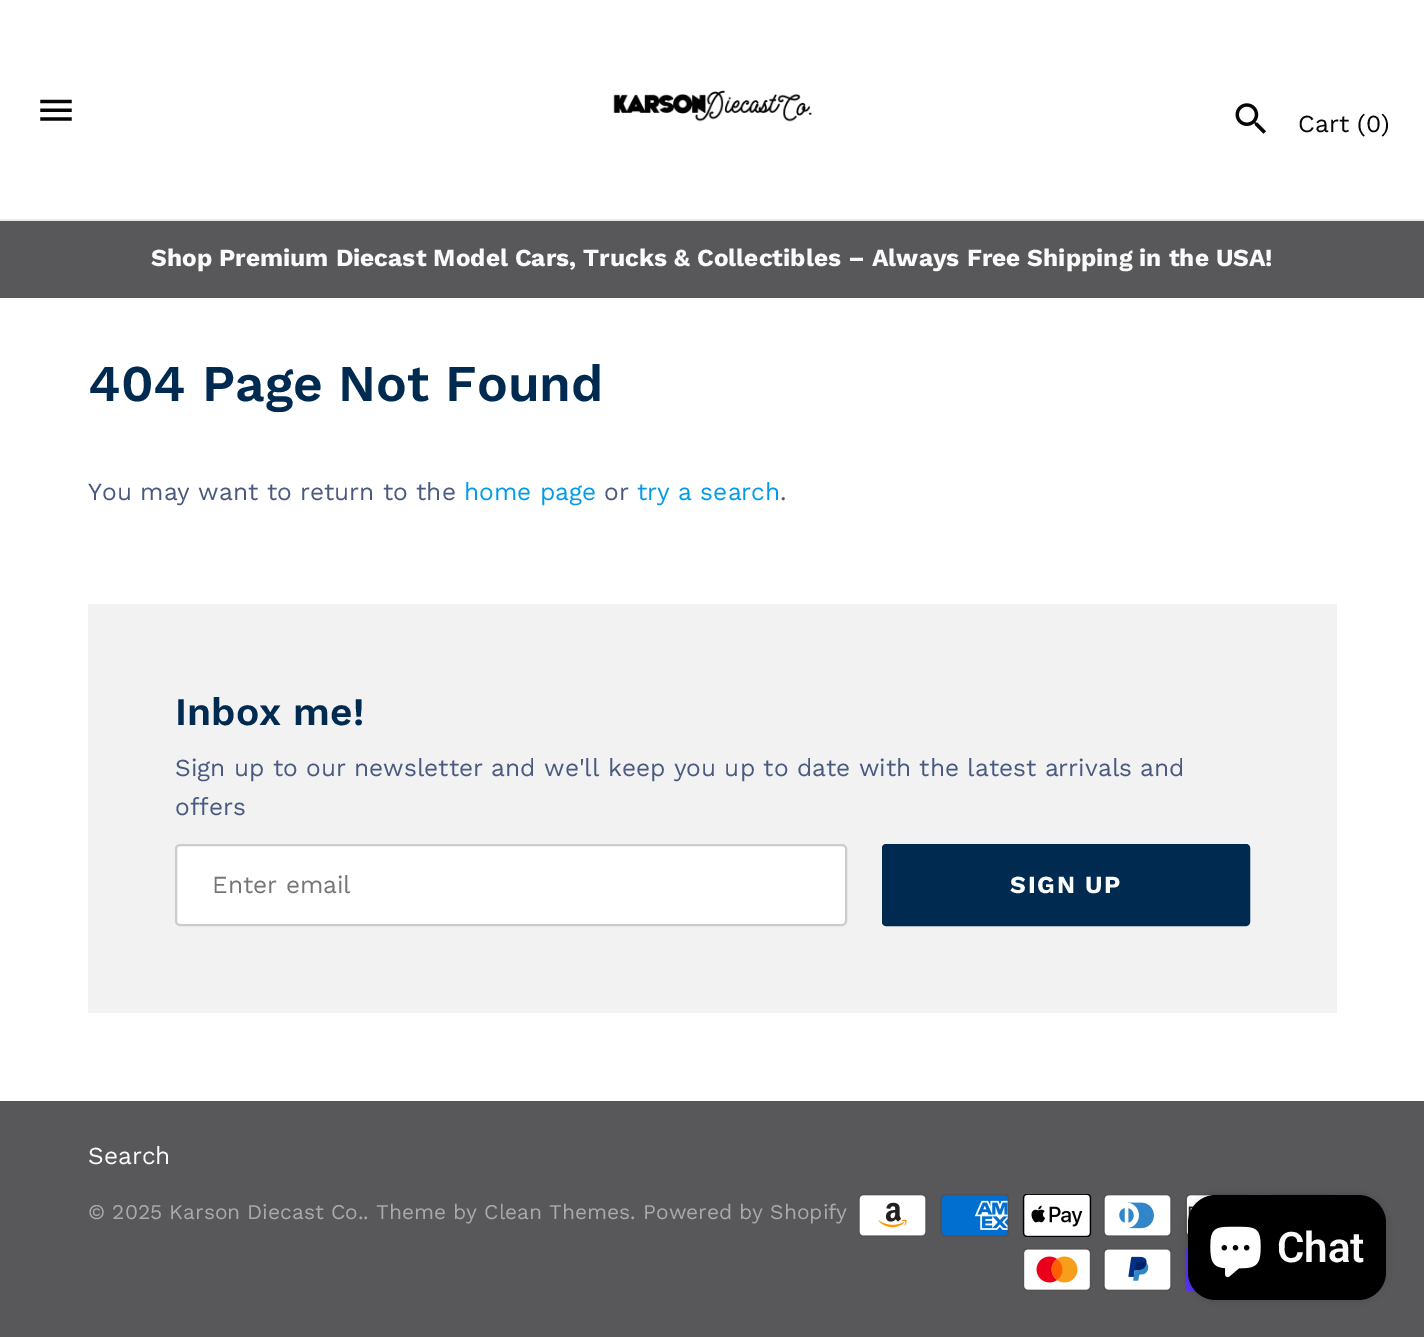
%!PS
<< /PageSize [1424 1337] /PageUsesTransparency true >> setpagedevice
/rgb { 3 { 255 div 3 1 roll } repeat setrgbcolor } def
/font { [ exch dup neg 0 0 3 -1 roll 0 0 ] selectfont } def
/alpha { dup .setfillconstantalpha .setstrokeconstantalpha } def
/roundrect { 5 dict begin { /r /h /w /y /x } { exch def } forall
  x r add y moveto x w add y 2 copy h add r arct x w add y h add x 1 index r arct
  x y h add x y r arct x y 2 copy exch w add exch r arct closepath end } def
/shadow { 12 dict begin { /a /b /q /h /w /y /x } { exch def } forall gsave /was 0 def
  9 -2 -9 { dup b mul 4 div /e exch def 1 sub .425 mul 2.718 exch exp 1 add a .99 .min exch div /now exch def
    1 1 now sub 1 was sub div sub alpha /was now def
    w h .min e 2 mul add 0 gt { x e sub y e sub w e 2 mul add h e 2 mul add
      q e add b .6 mul add w h .min 2 div e add .min 0 .max roundrect fill } if } for grestore end } def
/picture { 5 dict begin { /h /w /y /x /name } { exch def } forall
  gsave x y translate w h scale
  w h 8 [w 0 0 h 0 0] name (r) file false 3 colorimage grestore end } def
0 .pushpdf14devicefilter
0 1337 translate 1 -1 scale
4 setmiterlimit
255 255 255 rgb
0 0 1424 1337 rectfill
(img/1.rgb) 40 99 32 22 picture
(img/2.rgb) 613 90 199 32 picture
(img/3.rgb) 1235 103 31 31 picture
[
  [0 221 1424 77 88 88 90]
  [0 219 1424 2 231 231 231]
  [88 604 1249 409 242 242 242]
] { aload pop rgb rectfill } forall
255 255 255 rgb
176 845 670 80 4 roundrect gsave fill grestore
204 204 204 rgb
2 setlinewidth
stroke
0 42 80 rgb
883 845 366 80 3 roundrect gsave fill grestore
stroke
88 88 90 rgb
0 1101 1424 236 rectfill
(img/4.rgb) 858 1194 69 43 picture
(img/5.rgb) 940 1194 69 43 picture
(img/6.rgb) 1022 1194 70 43 picture
(img/7.rgb) 1103 1194 69 43 picture
(img/8.rgb) 1185 1194 67 42 picture
(img/9.rgb) 1269 1194 66 1 picture
(img/10.rgb) 1023 1248 68 43 picture
(img/11.rgb) 1103 1248 69 43 picture
(img/12.rgb) 1185 1248 12 44 picture
0 0 0 rgb
1188 1195 198 105 28 4.5 0.15 shadow
1188 1195 198 105 28 roundrect fill
(img/13.rgb) 1210 1226 51 52 picture
/WorkSans-Regular 24.5 font
7 6 6 rgb
1298 132 moveto (Cart \(0\)) show
/WorkSans-Bold 24.5 font
250 250 250 rgb
151 266 moveto (Shop Premium Diecast Model Cars, Trucks & Collectibles – Always Free Shipping in the USA!) show
/WorkSans-SemiBold 51.5 font
0 42 80 rgb
88 401 moveto (404 Page Not Found) show
/WorkSans-Regular 24.5 font
74 89 127 rgb
88 500 moveto (You may want to return to the) show
3 155 229 rgb
464 500 moveto (home page) show
74 89 127 rgb
604 500 moveto (or) show
3 155 229 rgb
637 500 moveto (try a search) show
74 89 127 rgb
780 500 moveto (.) show
/WorkSans-SemiBold 39 font
0 42 80 rgb
175 725 moveto (Inbox me!) show
/WorkSans-Regular 24.5 font
74 89 127 rgb
175 776 moveto (Sign up to our newsletter and we'll keep you up to date with the latest arrivals and) show
175 815 moveto (offers) show
117 117 117 rgb
212 893 moveto (Enter email) show
/WorkSans-Bold 24.5 font
250 250 250 rgb
1010 893 moveto 1.75 0 (SIGN UP) ashow
/WorkSans-Regular 24.5 font
88 1164 moveto (Search) show
/WorkSans-Regular 21 font
169 169 170 rgb
88 1219 moveto (© 2025 Karson Diecast Co.. Theme by Clean Themes. Powered by Shopify) show
/Roboto-SemiBold 42 font
250 250 250 rgb
1277 1262 moveto (Chat) show
.poppdf14devicefilter showpage
